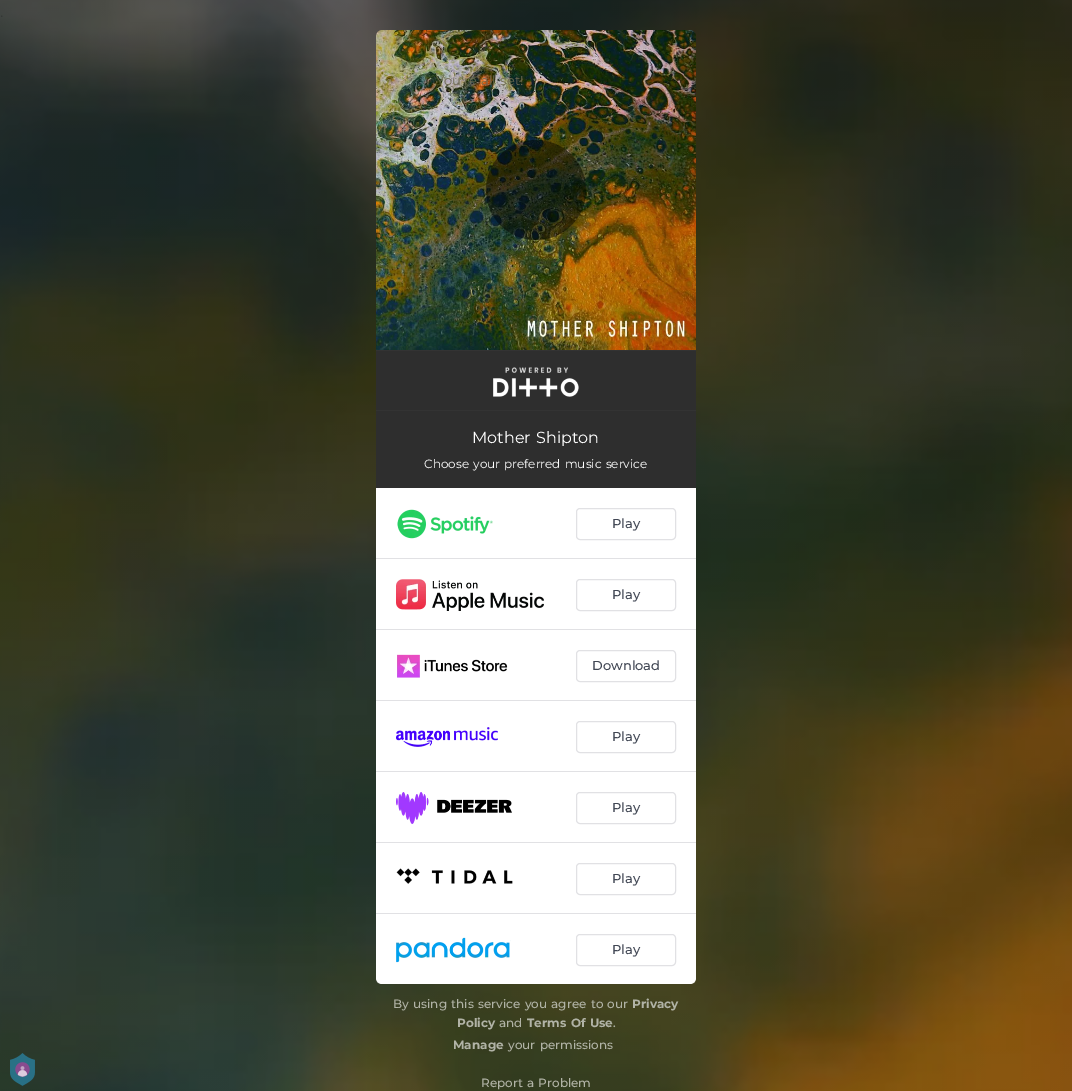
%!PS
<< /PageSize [1072 1091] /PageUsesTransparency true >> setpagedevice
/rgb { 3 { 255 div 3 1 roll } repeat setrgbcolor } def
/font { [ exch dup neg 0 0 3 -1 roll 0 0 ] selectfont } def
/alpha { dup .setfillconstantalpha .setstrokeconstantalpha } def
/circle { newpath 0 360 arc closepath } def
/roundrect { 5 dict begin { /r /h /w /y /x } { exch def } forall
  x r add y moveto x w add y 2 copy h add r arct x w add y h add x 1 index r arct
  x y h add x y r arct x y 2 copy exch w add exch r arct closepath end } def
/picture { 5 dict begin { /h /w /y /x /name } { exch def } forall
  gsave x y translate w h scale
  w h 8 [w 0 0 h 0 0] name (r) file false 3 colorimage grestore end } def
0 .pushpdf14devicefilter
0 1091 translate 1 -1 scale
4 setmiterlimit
255 255 255 rgb
0 0 1072 1091 rectfill
(img/2.rgb) 0 0 1072 1091 picture
(img/1.rgb) 10 1053 25 33 picture
(img/3.rgb) 376 30 320 320 picture
0.45 alpha
0 0 0 rgb
536 190 50 circle fill
1 alpha
[
  [376 351 320 59 46 46 46]
  [376 350 320 1 51 51 51]
  [376 410 320 1 51 51 51]
] { aload pop rgb rectfill } forall
(img/4.rgb) 493 367 86 30 picture
46 46 46 rgb
376 411 320 77 rectfill
255 255 255 rgb
376 488 moveto 696 488 lineto 696 978 lineto 696 981.5 693.5 984 690 984 curveto 382 984 lineto 378.5 984 376 981.5 376 978 curveto closepath fill
225 225 228 rgb
376 558 320 1 rectfill
(img/5.rgb) 397 509 96 30 picture
576.5 508.5 99 31 3.5 roundrect stroke
376 629 320 1 rectfill
(img/6.rgb) 396 579 148 32 picture
576.5 579.5 99 31 3.5 roundrect stroke
376 700 320 1 rectfill
(img/7.rgb) 397 654 111 24 picture
576.5 650.5 99 31 3.5 roundrect stroke
376 771 320 1 rectfill
(img/8.rgb) 396 727 102 20 picture
576.5 721.5 99 31 3.5 roundrect stroke
376 842 320 1 rectfill
(img/9.rgb) 396 792 116 32 picture
576.5 792.5 99 31 3.5 roundrect stroke
376 913 320 1 rectfill
(img/10.rgb) 396 868 117 16 picture
576.5 863.5 99 31 3.5 roundrect stroke
(img/11.rgb) 396 937 115 26 picture
576.5 934.5 99 31 3.5 roundrect stroke
/Montserrat-Regular 13 font
111 106 82 rgb
436 85 moveto 1 0 32 (You're all set!) widthshow
/Montserrat-Regular 16 font
255 255 255 rgb
472 443 moveto 1 0 32 (Mother Shipton) widthshow
/Montserrat-Regular 12 font
424 468 moveto 1 0 32 (Choose your preferred music service) widthshow
/Montserrat-Medium 13 font
65 71 84 rgb
[
  [(Play) 612 528]
  [(Play) 612 599]
  [(Download) 592 670]
  [(Play) 612 741]
  [(Play) 612 812]
  [(Play) 612 883]
  [(Play) 612 954]
] { aload pop moveto show } forall
/Montserrat-Medium 12 font
177 179 166 rgb
393 1008 moveto 1 0 32 (By using this service you agree to our) widthshow
/Montserrat-Bold 12 font
632 1008 moveto (Privacy) show
457 1027 moveto (Policy) show
/Montserrat-Medium 12 font
499 1027 moveto (and) show
/Montserrat-Bold 12 font
527 1027 moveto 1 0 32 (Terms Of Use) widthshow
/Montserrat-Medium 12 font
613 1027 moveto (.) show
/Montserrat-Bold 12 font
453 1049 moveto (Manage) show
/Montserrat-Medium 12 font
508 1049 moveto 1 0 32 (your permissions) widthshow
481 1087 moveto 1 0 32 (Report a Problem) widthshow
.poppdf14devicefilter showpage
